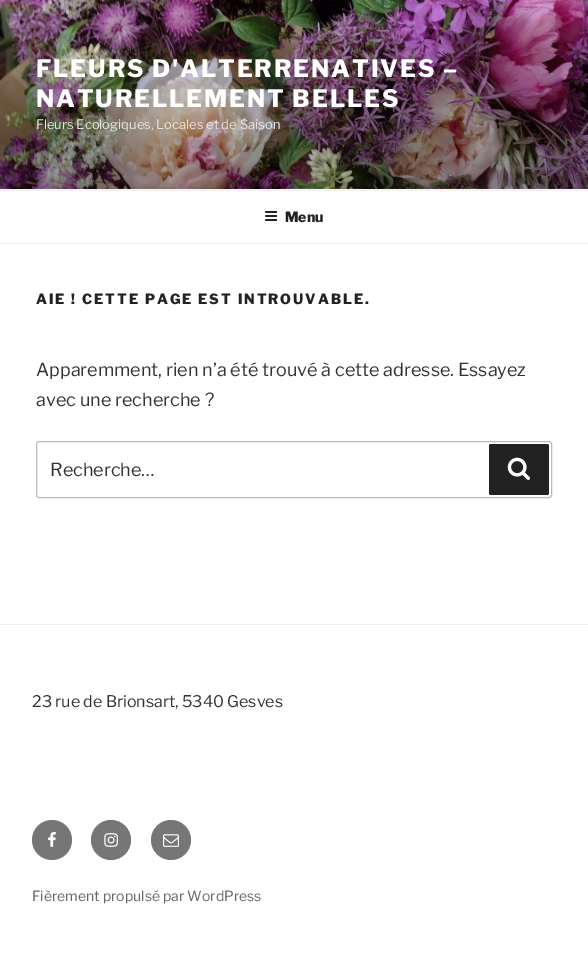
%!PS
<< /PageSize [588 965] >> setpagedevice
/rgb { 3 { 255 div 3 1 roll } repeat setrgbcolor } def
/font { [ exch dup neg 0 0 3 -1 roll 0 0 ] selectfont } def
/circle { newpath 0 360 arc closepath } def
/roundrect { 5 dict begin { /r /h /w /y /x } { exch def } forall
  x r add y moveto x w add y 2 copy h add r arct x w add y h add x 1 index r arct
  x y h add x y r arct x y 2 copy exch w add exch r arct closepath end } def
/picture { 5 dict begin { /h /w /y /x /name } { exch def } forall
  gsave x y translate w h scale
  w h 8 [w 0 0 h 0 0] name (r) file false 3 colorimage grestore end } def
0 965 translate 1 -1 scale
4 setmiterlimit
255 255 255 rgb
0 0 588 965 rectfill
250 250 250 rgb
0 189 588 1 rectfill
(img/1.rgb) 0 0 588 189 picture
238 238 238 rgb
0 190 588 1 rectfill
0 243 588 1 rectfill
(img/2.rgb) 265 211 13 10 picture
187 187 187 rgb
36.5 441.5 515 56 2.5 roundrect stroke
34 34 34 rgb
489 444 60 51 2 roundrect fill
(img/3.rgb) 507 457 23 23 picture
238 238 238 rgb
0 624 588 1 rectfill
118 118 118 rgb
52 840 20 circle fill
(img/4.rgb) 48 832 8 15 picture
111 840 20 circle fill
(img/5.rgb) 104 833 14 14 picture
171 840 20 circle fill
(img/6.rgb) 163 834 16 13 picture
/LibreFranklin-Thin 24 font
255 255 255 rgb
36 77 moveto 1.9 0 (FLEURS D'ALTERRENATIVES –) ashow
36 107 moveto 1.9 0 (NATURELLEMENT BELLES) ashow
/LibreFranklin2-Thin 13 font
232 229 226 rgb
36 129 moveto (Fleurs Ecologiques, Locales et de Saison) show
/LibreFranklin-Thin 14 font
34 34 34 rgb
285 222 moveto (Menu) show
36 304 moveto 1.95 0 (AIE ! CETTE PAGE EST INTROUVABLE.) ashow
/LibreFranklin2-Thin 18 font
51 51 51 rgb
[
  [(Apparemment, rien n’a été trouvé à cette adresse. Essayez) 36 376]
  [(avec une recherche ?) 36 406]
  [(Recherche…) 50 476]
] { aload pop moveto show } forall
/LibreFranklin2-Thin 16 font
32 707 moveto (23 rue de Brionsart, 5340 Gesves) show
/LibreFranklin2-Thin 14 font
102 102 102 rgb
32 901 moveto (Fièrement propulsé par WordPress) show
showpage
